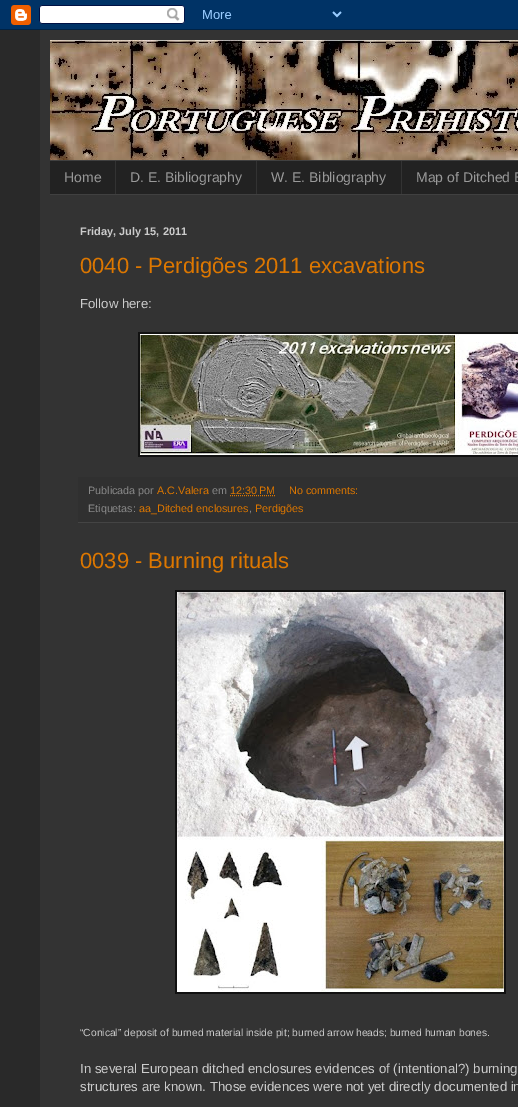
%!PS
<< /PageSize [518 1107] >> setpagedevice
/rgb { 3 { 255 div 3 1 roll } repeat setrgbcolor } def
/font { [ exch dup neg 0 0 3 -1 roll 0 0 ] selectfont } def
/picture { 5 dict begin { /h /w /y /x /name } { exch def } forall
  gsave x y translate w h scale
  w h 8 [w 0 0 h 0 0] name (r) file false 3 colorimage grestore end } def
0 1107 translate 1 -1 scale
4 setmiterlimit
41 41 41 rgb
0 0 518 1107 rectfill
(img/1.rgb) 0 0 518 30 picture
51 51 51 rgb
40 30 478 1077 rectfill
(img/2.rgb) 50 40 468 120 picture
[
  [50 161 468 33 34 34 34]
  [50 160 468 1 64 64 64]
  [50 194 468 1 64 64 64]
  [115 161 1 33 51 51 51]
  [256 161 1 33 51 51 51]
  [401 161 1 33 51 51 51]
  [138 332 380 125 17 17 17]
] { aload pop rgb rectfill } forall
(img/3.rgb) 140 334 378 121 picture
48 48 48 rgb
78 477 440 45 rectfill
68 68 68 rgb
78 522 440 1 rectfill
221 119 0 rgb
[1 1] 0 setdash
230 495.5 moveto 275.5 495.5 lineto stroke
17 17 17 rgb
175 590 331 404 rectfill
(img/4.rgb) 177 592 327 400 picture
/LiberationSans-Regular 14 font
153 153 153 rgb
[
  [(Home) 64 182]
  [(D. E. Bibliography) 130 182]
  [(W. E. Bibliography) 271 182]
  [(Map of Ditched E) 416 182]
] { aload pop moveto show } forall
/LiberationSans-Bold 11 font
204 204 204 rgb
80 235 moveto (Friday, July 15, 2011) show
/LiberationSans-Regular 22 font
221 119 0 rgb
80 273 moveto (0040 - Perdigões 2011 excavations) show
/LiberationSans-Regular 13.2 font
204 204 204 rgb
80 308 moveto (Follow here:) show
/LiberationSans-Regular 10.75 font
136 136 136 rgb
88 494 moveto (Publicada por) show
221 119 0 rgb
157 494 moveto (A.C.Valera) show
136 136 136 rgb
212 494 moveto (em) show
221 119 0 rgb
230 494 moveto (12:30 PM) show
289 494 moveto (No comments:) show
136 136 136 rgb
88 512 moveto (Etiquetas:) show
221 119 0 rgb
139 512 moveto (aa_Ditched enclosures) show
136 136 136 rgb
249 512 moveto (,) show
221 119 0 rgb
255 512 moveto (Perdigões) show
/LiberationSans-Regular 22 font
80 568 moveto (0039 - Burning rituals) show
/LiberationSans-Regular 10.3 font
204 204 204 rgb
80 1036 moveto (“Conical” deposit of burned material inside pit; burned arrow heads; burned human bones.) show
/LiberationSans-Regular 13.2 font
80 1073 moveto (In several European ditched enclosures evidences of \(intentional?\) burning) show
80 1091 moveto (structures are known. Those evidences were not yet directly documented in) show
showpage
